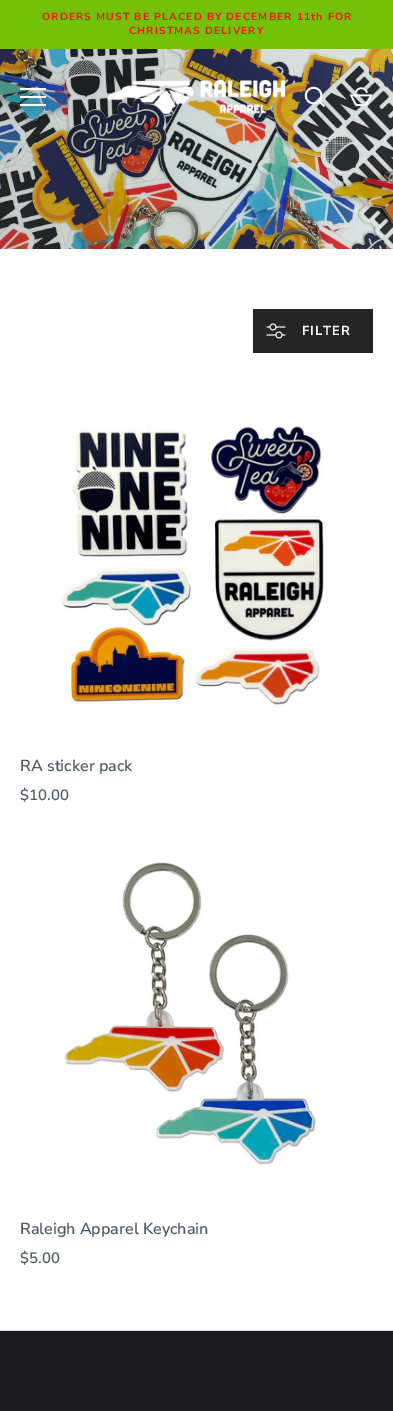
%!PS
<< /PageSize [393 1411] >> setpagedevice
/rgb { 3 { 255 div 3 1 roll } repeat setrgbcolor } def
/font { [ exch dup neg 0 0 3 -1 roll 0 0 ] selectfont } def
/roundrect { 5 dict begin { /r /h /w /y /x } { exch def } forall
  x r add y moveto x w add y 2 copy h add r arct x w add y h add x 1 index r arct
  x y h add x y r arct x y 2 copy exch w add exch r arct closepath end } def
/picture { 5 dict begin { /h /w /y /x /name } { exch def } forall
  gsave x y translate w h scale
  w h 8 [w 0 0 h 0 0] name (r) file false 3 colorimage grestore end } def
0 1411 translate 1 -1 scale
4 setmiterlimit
255 255 255 rgb
0 0 393 1411 rectfill
114 194 10 rgb
0 0 393 49 rectfill
(img/4.rgb) 0 49 393 200 picture
255 255 255 rgb
20 88 26 2 1 roundrect fill
20 96 26 2 1 roundrect fill
20 104 26 2 1 roundrect fill
(img/1.rgb) 108 80 177 34 picture
(img/2.rgb) 304 86 22 22 picture
(img/3.rgb) 349 87 24 20 picture
37 37 37 rgb
253 309 120 44 rectfill
(img/5.rgb) 266 323 20 16 picture
(img/6.rgb) 60 404 302 321 picture
(img/7.rgb) 64 862 253 304 picture
26 26 30 rgb
0 1331 393 80 rectfill
219 222 225 rgb
0 1330 393 1 rectfill
/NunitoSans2-Bold 10.3 font
245 20 9 rgb
42 20 moveto 1.05 0 (ORDERS MUST BE PLACED BY DECEMBER 11th FOR) ashow
129 34 moveto 1.05 0 (CHRISTMAS DELIVERY) ashow
/NunitoSans-Bold 13 font
255 255 255 rgb
302 335 moveto 1 0 (FILTER) ashow
/NunitoSans-SemiBold 16 font
76 91 104 rgb
20 771 moveto (RA sticker pack) show
/NunitoSans-SemiBold 15 font
20 800 moveto ($10.00) show
/NunitoSans-SemiBold 16 font
20 1234 moveto (Raleigh Apparel Keychain) show
/NunitoSans-SemiBold 15 font
20 1263 moveto ($5.00) show
showpage
